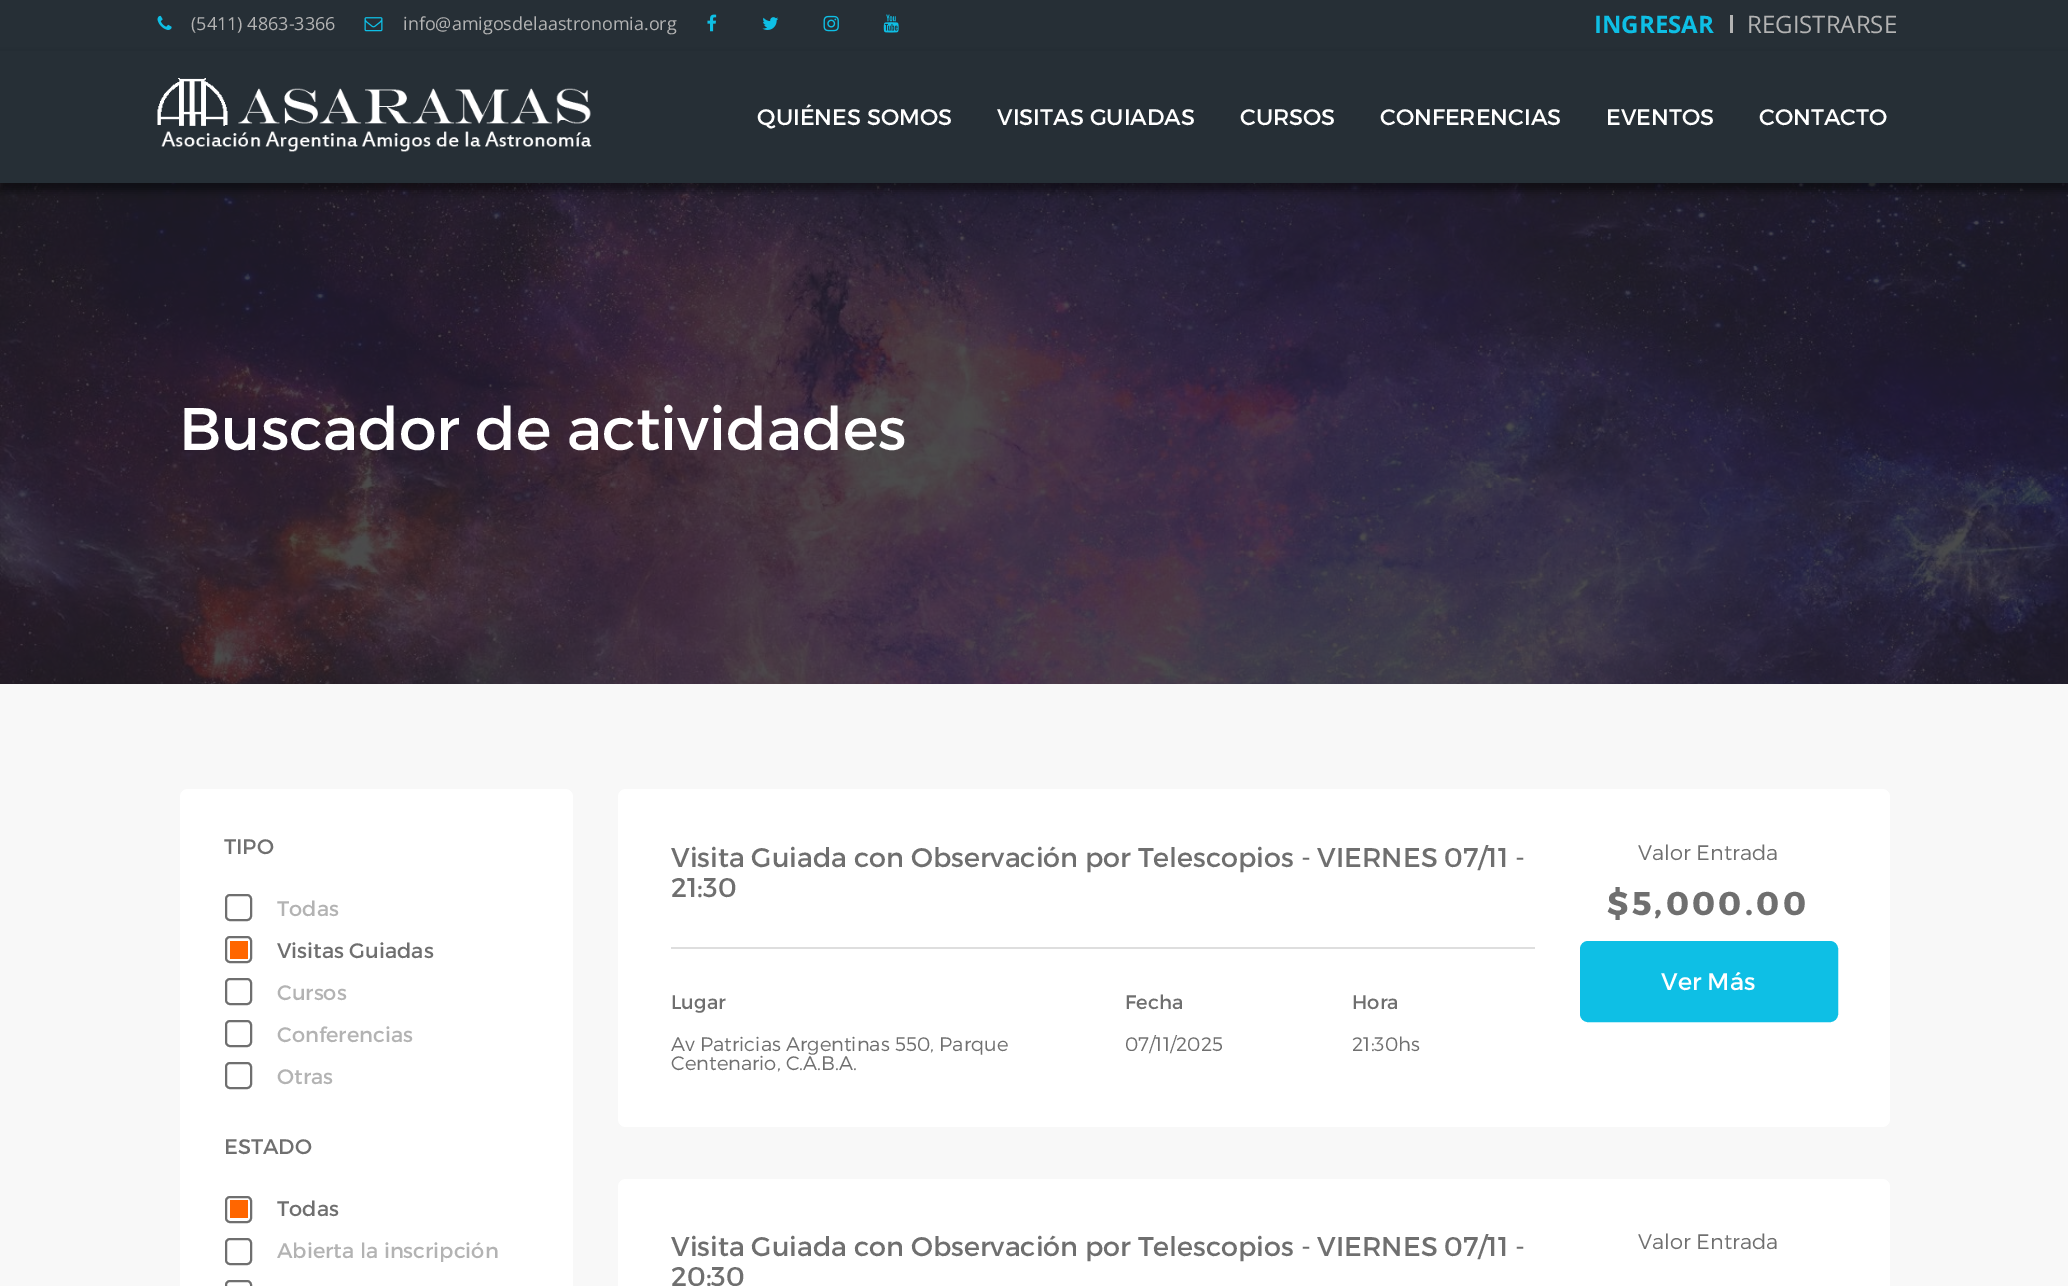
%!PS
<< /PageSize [2068 1286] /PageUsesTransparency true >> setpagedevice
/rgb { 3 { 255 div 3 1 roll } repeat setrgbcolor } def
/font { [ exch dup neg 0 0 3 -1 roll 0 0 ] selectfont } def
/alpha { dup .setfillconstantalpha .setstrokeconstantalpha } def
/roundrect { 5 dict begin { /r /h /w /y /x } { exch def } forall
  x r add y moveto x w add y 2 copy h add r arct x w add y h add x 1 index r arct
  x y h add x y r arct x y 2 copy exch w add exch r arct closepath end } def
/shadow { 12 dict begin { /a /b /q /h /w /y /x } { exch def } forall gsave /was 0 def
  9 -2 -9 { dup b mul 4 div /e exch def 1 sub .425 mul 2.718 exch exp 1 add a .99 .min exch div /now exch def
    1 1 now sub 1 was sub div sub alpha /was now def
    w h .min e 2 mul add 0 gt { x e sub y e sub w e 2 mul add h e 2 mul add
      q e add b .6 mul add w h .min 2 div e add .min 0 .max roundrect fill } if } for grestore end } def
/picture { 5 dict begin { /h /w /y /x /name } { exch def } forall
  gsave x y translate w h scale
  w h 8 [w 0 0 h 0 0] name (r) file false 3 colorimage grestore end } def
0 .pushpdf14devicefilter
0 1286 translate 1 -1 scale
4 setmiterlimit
38 47 54 rgb
0 0 2068 1286 rectfill
(img/1.rgb) 157 15 15 15 picture
(img/2.rgb) 364 17 19 15 picture
(img/3.rgb) 707 14 10 18 picture
(img/4.rgb) 762 17 17 13 picture
(img/5.rgb) 823 15 16 17 picture
(img/6.rgb) 883 14 16 19 picture
179 179 179 rgb
1730 15 3 18 rectfill
(img/8.rgb) 0 183 2068 501 picture
0 0 0 rgb
0 56 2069 135 0 4 0.46 shadow
38 47 54 rgb
0 51 2068 132 rectfill
(img/7.rgb) 157 78 435 74 picture
248 248 248 rgb
0 684 2068 602 rectfill
255 255 255 rgb
180 789 393 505 8 roundrect fill
111 111 111 rgb
2 setlinewidth
226 895 25 25 4 roundrect stroke
255 102 0 rgb
230 941 18 18 rectfill
111 111 111 rgb
226 937 25 25 4 roundrect stroke
226 979 25 25 4 roundrect stroke
226 1021 25 25 4 roundrect stroke
226 1063 25 25 4 roundrect stroke
255 102 0 rgb
230 1200 18 18 rectfill
111 111 111 rgb
226 1197 25 25 4 roundrect stroke
226 1239 25 25 4 roundrect stroke
226 1281 25 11 4 roundrect stroke
255 255 255 rgb
618 789 1272 338 8 roundrect fill
222 222 222 rgb
671 947 864 2 rectfill
14 191 229 rgb
1581 942 256 79 7 roundrect gsave fill grestore
stroke
255 255 255 rgb
618 1179 1272 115 8 roundrect fill
/OpenSans-Regular 18 font
179 179 179 rgb
191 30 moveto (\(5411\) 4863-3366) show
403 30 moveto (info@amigosdelaastronomia.org) show
/OpenSans-Bold 24 font
14 191 229 rgb
1594 33 moveto (INGRESAR) show
/OpenSans-Regular 24 font
179 179 179 rgb
1747 33 moveto (REGISTRARSE) show
/Montserrat-Regular 22.5 font
255 255 255 rgb
[
  [(QUIÉNES SOMOS) 757 125]
  [(VISITAS GUIADAS) 997 125]
  [(CURSOS) 1240 125]
  [(CONFERENCIAS) 1380 125]
  [(EVENTOS) 1606 125]
  [(CONTACTO) 1759 125]
] { aload pop moveto show } forall
/Montserrat-Regular 60 font
179 450 moveto (Buscador de actividades) show
/Montserrat-Regular 21 font
111 111 111 rgb
224 854 moveto (TIPO) show
179 179 179 rgb
277 916 moveto (Todas) show
111 111 111 rgb
277 958 moveto (Visitas Guiadas) show
179 179 179 rgb
[
  [(Cursos) 277 1000]
  [(Conferencias) 277 1042]
  [(Otras) 277 1084]
] { aload pop moveto show } forall
111 111 111 rgb
224 1154 moveto (ESTADO) show
277 1216 moveto (Todas) show
179 179 179 rgb
277 1258 moveto (Abierta la inscripción) show
/Montserrat-Regular 27 font
111 111 111 rgb
671 867 moveto (Visita Guiada con Observación por Telescopios - VIERNES 07/11 -) show
671 897 moveto (21:30) show
/Montserrat-Regular 19.5 font
671 1009 moveto (Lugar) show
/Montserrat-Light 19.5 font
671 1051 moveto (Av Patricias Argentinas 550, Parque) show
671 1070 moveto (Centenario, C.A.B.A.) show
/Montserrat-Regular 19.5 font
1125 1009 moveto (Fecha) show
/Montserrat-Light 19.5 font
1125 1051 moveto (07/11/2025) show
/Montserrat-Regular 19.5 font
1352 1009 moveto (Hora) show
/Montserrat-Light 19.5 font
1352 1051 moveto (21:30hs) show
/Montserrat-Light 21 font
1638 860 moveto (Valor Entrada) show
/Montserrat-Bold 33 font
1607 915 moveto 3.25 0 ($5,000.00) ashow
/Montserrat-Regular 24 font
255 255 255 rgb
1661 990 moveto (Ver Más) show
/Montserrat-Regular 27 font
111 111 111 rgb
671 1256 moveto (Visita Guiada con Observación por Telescopios - VIERNES 07/11 -) show
671 1286 moveto (20:30) show
/Montserrat-Light 21 font
1638 1249 moveto (Valor Entrada) show
.poppdf14devicefilter showpage
